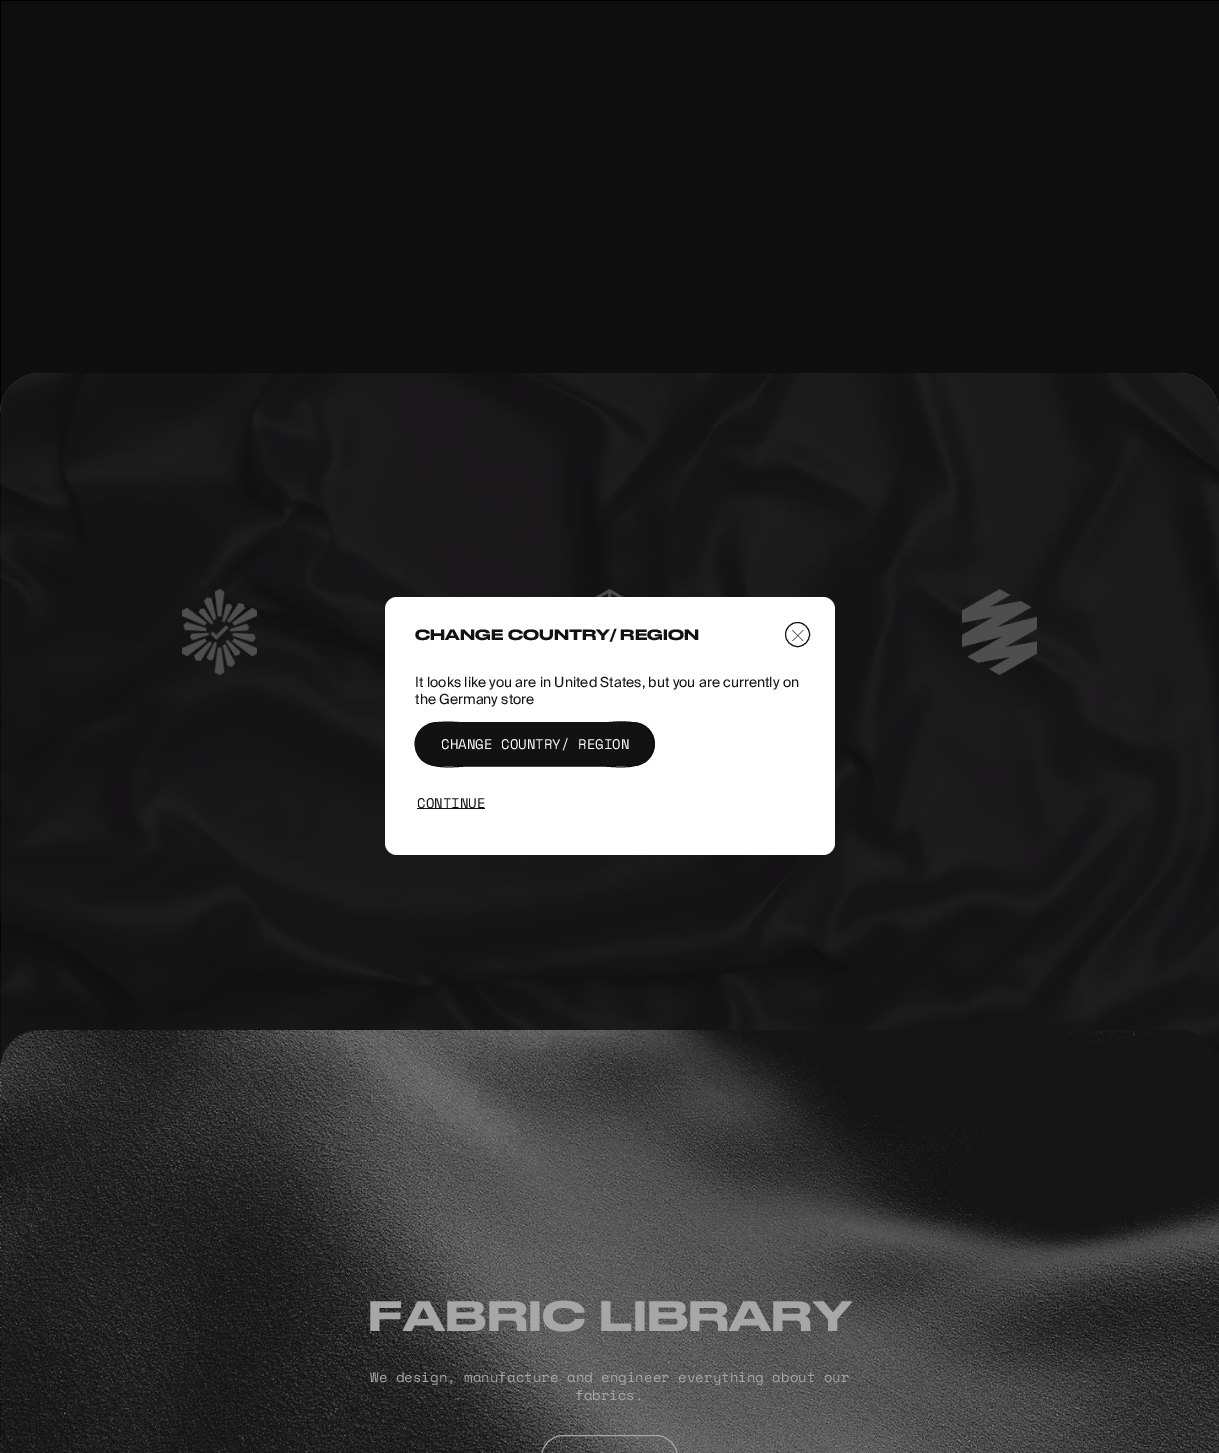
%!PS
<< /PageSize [1219 1453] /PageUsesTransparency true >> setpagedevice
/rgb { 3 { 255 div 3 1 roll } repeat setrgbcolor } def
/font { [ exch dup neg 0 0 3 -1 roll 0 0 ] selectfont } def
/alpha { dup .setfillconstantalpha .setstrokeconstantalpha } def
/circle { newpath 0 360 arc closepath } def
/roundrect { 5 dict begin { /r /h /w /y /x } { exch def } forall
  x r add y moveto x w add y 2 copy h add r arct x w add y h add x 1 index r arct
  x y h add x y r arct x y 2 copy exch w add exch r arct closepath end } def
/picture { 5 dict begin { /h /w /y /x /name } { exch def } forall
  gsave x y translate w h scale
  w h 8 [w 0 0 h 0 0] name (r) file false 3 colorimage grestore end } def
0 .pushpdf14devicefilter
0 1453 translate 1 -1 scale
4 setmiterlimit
0 0 0 rgb
0 0 1219 1453 rectfill
255 255 255 rgb
40 373 moveto 1179 373 lineto 1201 373 1219 391 1219 413 curveto 1219 1070 lineto 0 1070 lineto 0 413 lineto 0 391 18 373 40 373 curveto closepath fill
(img/5.rgb) 0 373 1219 697 picture
(img/2.rgb) 182 589 75 86 picture
(img/3.rgb) 595 589 29 8 picture
(img/4.rgb) 962 589 75 86 picture
0.58 alpha
0 0 0 rgb
0 373 1219 697 rectfill
1 alpha
(img/6.rgb) 0 1030 1219 423 picture
255 255 255 rgb
541.5 1435.5 136 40 21.5 roundrect stroke
/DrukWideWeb-Medium 40 font
368 1331 moveto 0.4 0 (FABRIC LIBRARY) ashow
/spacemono-Regular 14 font
370 1382 moveto (We design, manufacture and engineer everything about our) show
575 1400 moveto (fabrics.) show
0.4 alpha
34 34 34 rgb
1 1 1218 1452 rectfill
1 alpha
255 255 255 rgb
385 597 450 258 12 roundrect fill
18 18 18 rgb
797.5 634.5 12 circle stroke
(img/1.rgb) 792 629 12 12 picture
417 808 68 1 rectfill
417 808 moveto (CONTINUE) show
415 722 240 44 22 roundrect fill
12 12 12 rgb
647.5 729 moveto 652.5 734 655 741.5 653.5 748.5 curveto 648.5 773 616 766 600 766 curveto 469 766 lineto 458.5 766 432.5 770.5 421.5 759.5 curveto stroke
18 18 18 rgb
421.5 759.5 moveto 416.5 754.5 414 747 415.5 740 curveto 420.5 716 453 723 469 723 curveto 600 723 lineto 610.5 723 636.5 718 647.5 729 curveto stroke
255 255 255 rgb
441 749 moveto (CHANGE COUNTRY/ REGION) show
/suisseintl-Regular 14 font
18 18 18 rgb
415 704 moveto (the Germany store) show
415 687 moveto (It looks like you are in United States, but you are currently on) show
/DrukWideWeb-Medium 14 font
415 640 moveto (CHANGE COUNTRY/ REGION) show
.poppdf14devicefilter showpage
